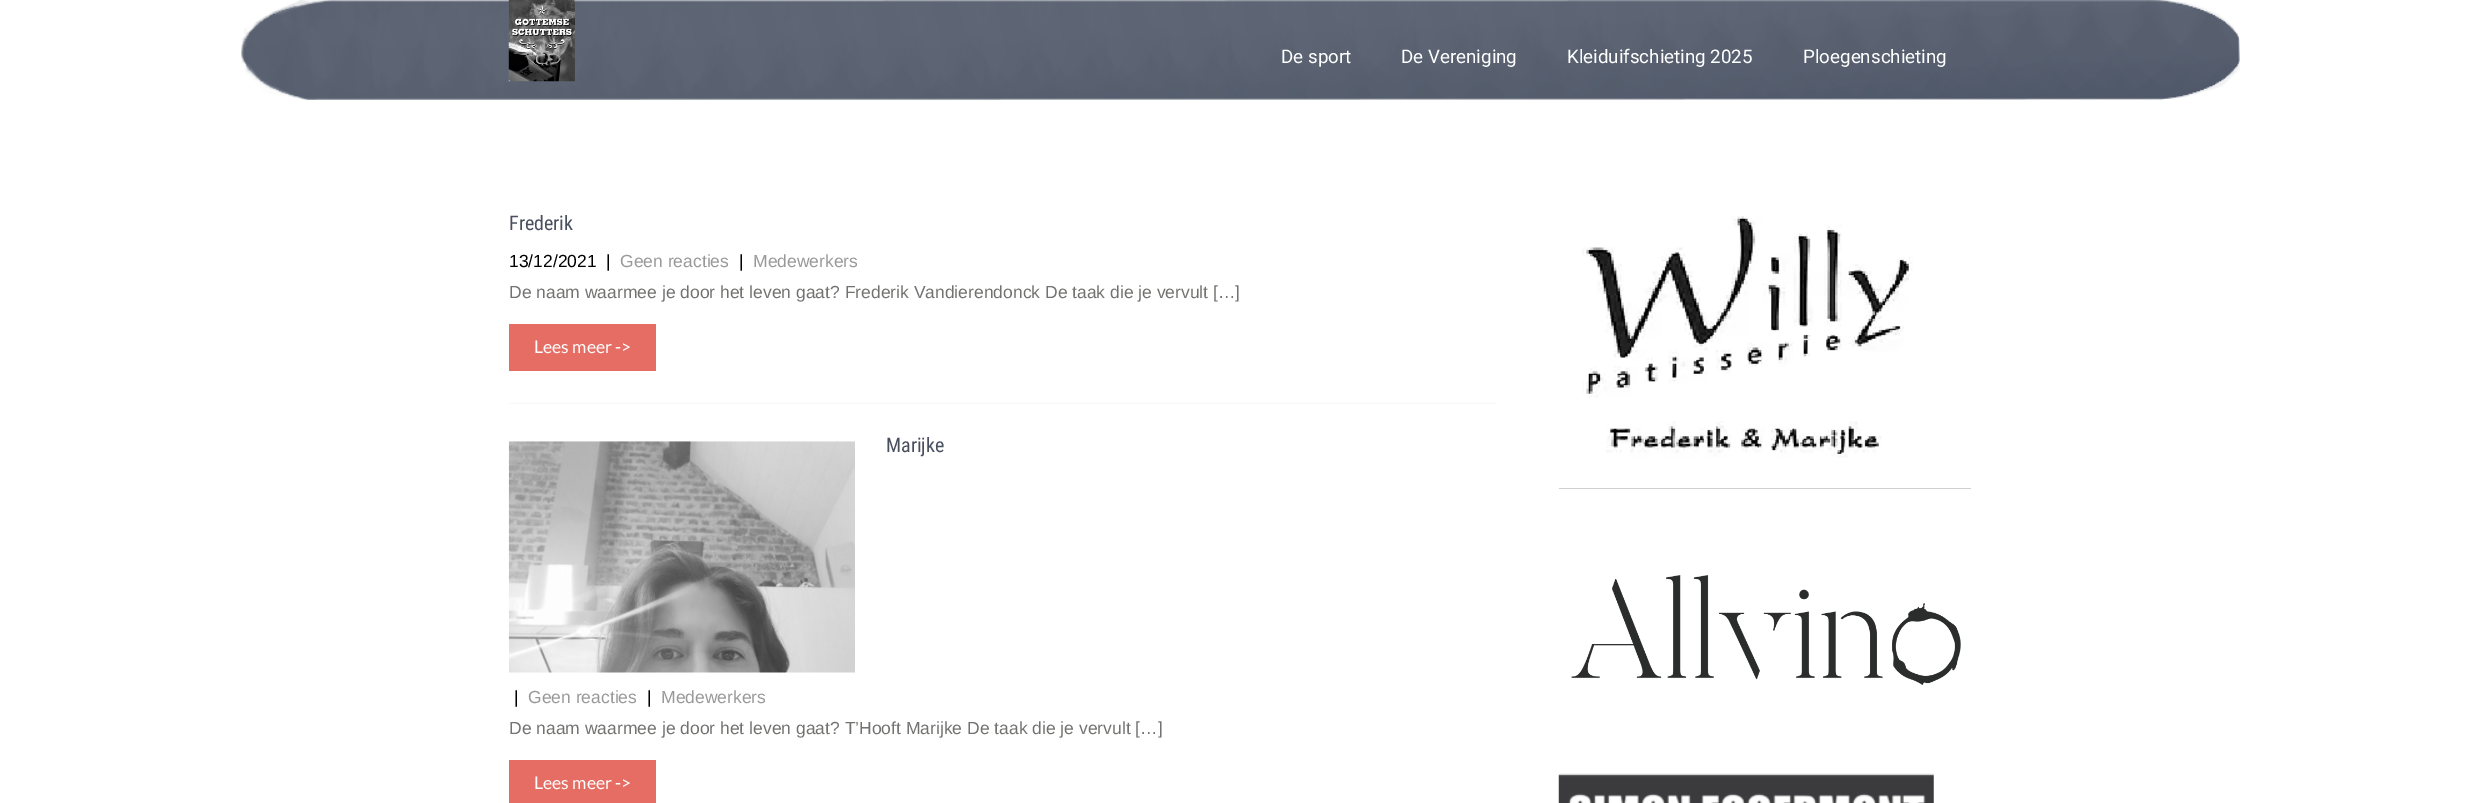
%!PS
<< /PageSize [2480 803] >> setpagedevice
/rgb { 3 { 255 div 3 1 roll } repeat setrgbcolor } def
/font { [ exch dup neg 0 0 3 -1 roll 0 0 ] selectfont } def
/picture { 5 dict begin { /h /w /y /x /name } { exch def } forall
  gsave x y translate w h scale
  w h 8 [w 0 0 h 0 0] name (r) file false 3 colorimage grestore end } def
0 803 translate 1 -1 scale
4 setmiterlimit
255 255 255 rgb
0 0 2480 803 rectfill
(img/1.rgb) 241 0 1999 100 picture
(img/2.rgb) 508 0 67 82 picture
247 247 247 rgb
509 403 987 1 rectfill
229 109 100 rgb
509 324 147 47 rectfill
(img/3.rgb) 508 441 347 232 picture
509 760 147 43 rectfill
(img/4.rgb) 1582 216 331 242 picture
209 209 209 rgb
1559 488 412 1 rectfill
(img/5.rgb) 1571 575 390 110 picture
(img/6.rgb) 1558 773 376 30 picture
/Roboto-Regular 18.75 font
255 255 255 rgb
[
  [(De sport) 1281 63]
  [(De Vereniging) 1401 63]
  [(Kleiduifschieting 2025) 1567 63]
  [(Ploegenschieting) 1803 63]
] { aload pop moveto show } forall
/RobotoCondensed-Regular 20 font
72 79 94 rgb
509 230 moveto (Frederik) show
/LiberationSans-Regular 17.5 font
0 0 0 rgb
509 267 moveto (13/12/2021) show
606 267 moveto (|) show
153 153 153 rgb
620 267 moveto (Geen reacties) show
0 0 0 rgb
739 267 moveto (|) show
153 153 153 rgb
753 267 moveto (Medewerkers) show
114 115 112 rgb
509 298 moveto (De naam waarmee je door het leven gaat? Frederik Vandierendonck De taak die je vervult […]) show
/Lato-Regular 17.5 font
255 255 255 rgb
534 353 moveto (Lees meer ->) show
/RobotoCondensed-Regular 20 font
72 79 94 rgb
886 452 moveto (Marijke) show
/LiberationSans-Regular 17.5 font
0 0 0 rgb
514 703 moveto (|) show
153 153 153 rgb
528 703 moveto (Geen reacties) show
0 0 0 rgb
647 703 moveto (|) show
153 153 153 rgb
661 703 moveto (Medewerkers) show
114 115 112 rgb
509 734 moveto (De naam waarmee je door het leven gaat? T’Hooft Marijke De taak die je vervult […]) show
/Lato-Regular 17.5 font
255 255 255 rgb
534 789 moveto (Lees meer ->) show
showpage
